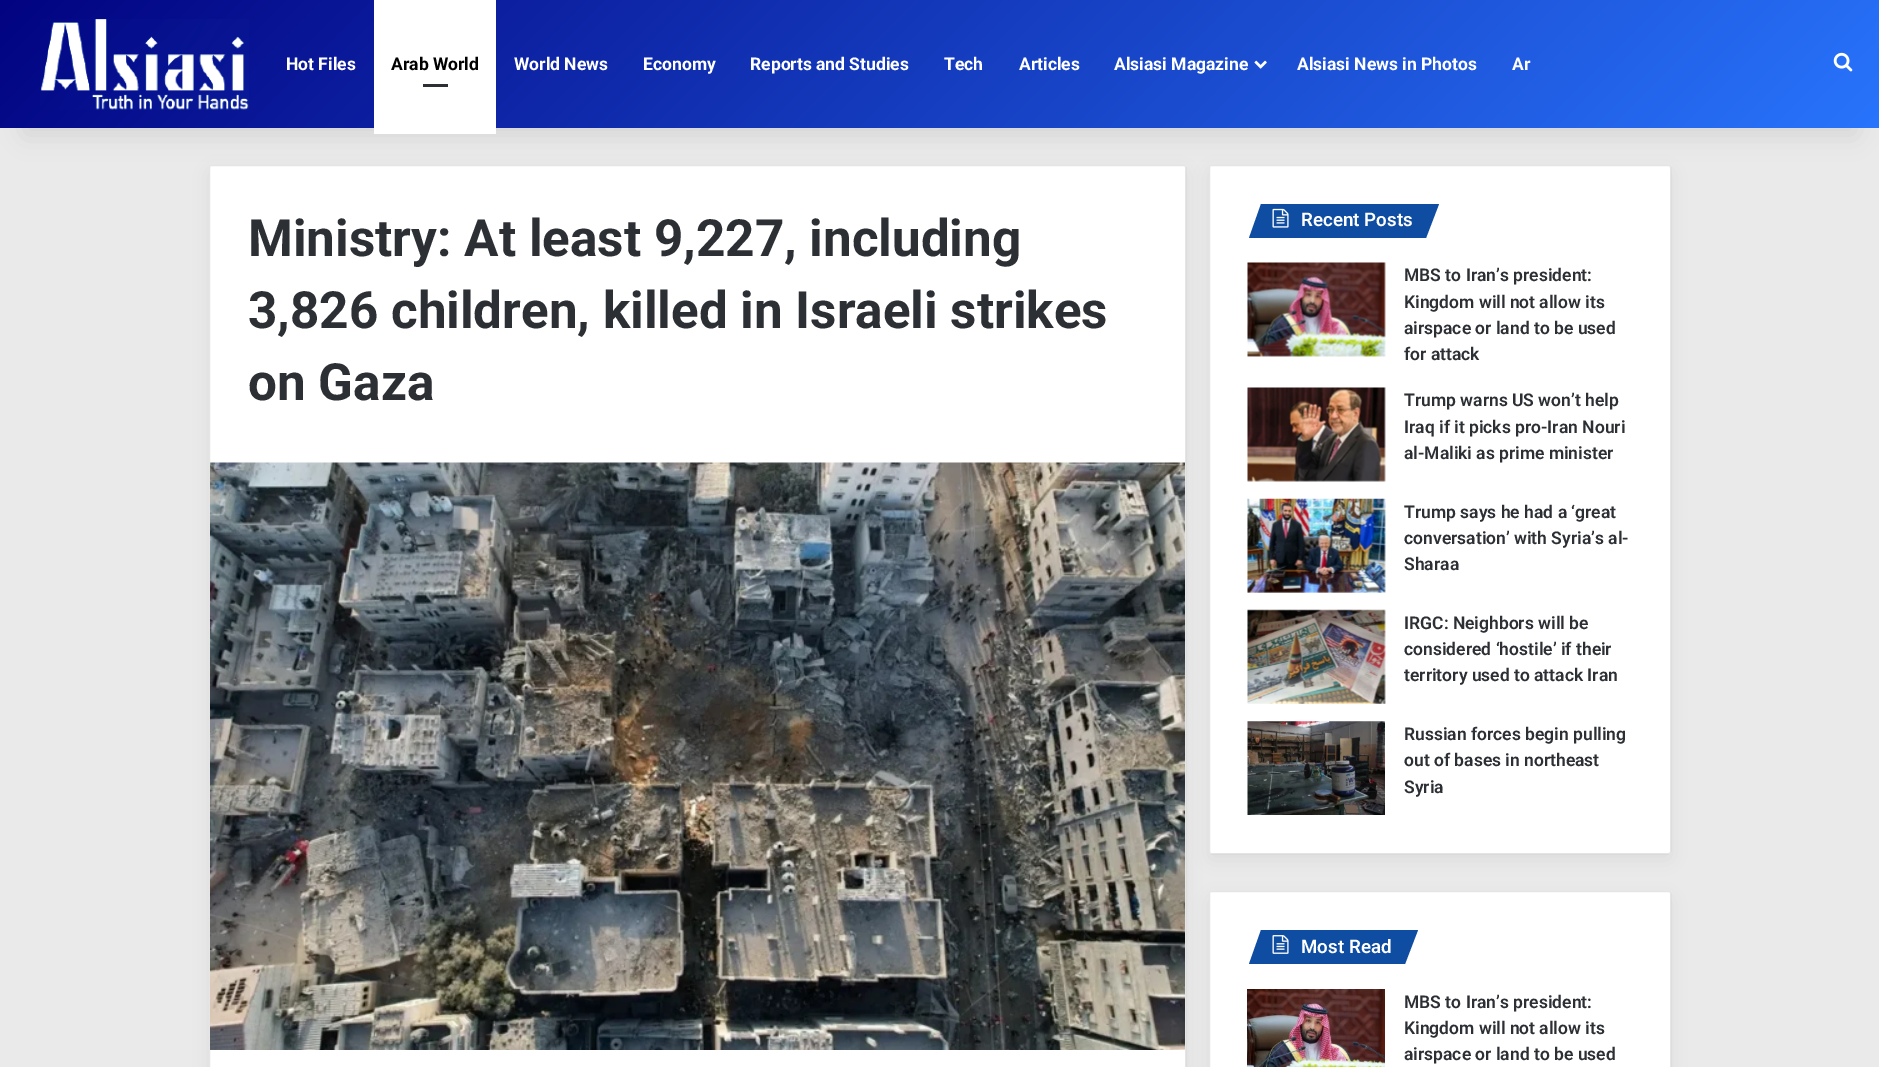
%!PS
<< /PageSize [1879 1067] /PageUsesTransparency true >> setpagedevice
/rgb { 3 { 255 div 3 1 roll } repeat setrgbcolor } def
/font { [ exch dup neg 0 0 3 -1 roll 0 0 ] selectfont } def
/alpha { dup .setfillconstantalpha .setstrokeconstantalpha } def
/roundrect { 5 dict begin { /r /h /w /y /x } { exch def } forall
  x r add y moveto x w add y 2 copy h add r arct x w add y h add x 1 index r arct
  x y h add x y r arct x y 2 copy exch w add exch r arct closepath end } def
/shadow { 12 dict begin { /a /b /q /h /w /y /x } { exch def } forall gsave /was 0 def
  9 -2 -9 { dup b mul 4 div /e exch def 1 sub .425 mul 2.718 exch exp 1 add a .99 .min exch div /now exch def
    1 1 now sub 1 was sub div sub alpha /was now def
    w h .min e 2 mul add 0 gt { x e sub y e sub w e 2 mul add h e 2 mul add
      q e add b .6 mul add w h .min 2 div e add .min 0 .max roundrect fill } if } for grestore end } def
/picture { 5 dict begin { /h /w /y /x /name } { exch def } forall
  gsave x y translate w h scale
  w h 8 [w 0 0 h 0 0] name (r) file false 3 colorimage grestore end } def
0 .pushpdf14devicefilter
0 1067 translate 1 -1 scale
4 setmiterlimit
234 234 234 rgb
0 0 1879 1067 rectfill
0 0 0 rgb
209 171 977 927 2.5 9.5 0.05 shadow
255 255 255 rgb
209 165 977 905 2.5 roundrect fill
0.1 alpha
0 0 0 rgb
209.5 165.5 976 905 2 roundrect stroke
1 alpha
(img/4.rgb) 210 462 975 588 picture
1209 171 462 689 2.5 9.5 0.05 shadow
255 255 255 rgb
1209 165 462 689 2.5 roundrect fill
0.1 alpha
0 0 0 rgb
1209.5 165.5 461 688 2 roundrect stroke
1 alpha
25 56 1830 78 0 12.5 0.1 shadow
gsave 0 0 moveto 1879 0 lineto 1879 128 lineto 0 128 lineto closepath clip newpath
<< /ShadingType 2 /ColorSpace /DeviceRGB /Coords [438 -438 1442 566] /Extend [true true] /Function << /FunctionType 2 /Domain [0 1] /C0 [0.008 0.012 0.506] /C1 [0.157 0.455 0.988] /N 1 >> >> shfill grestore
(img/1.rgb) 40 19 209 91 picture
255 255 255 rgb
374 0 122 134 rectfill
44 47 52 rgb
423 84 25 3 rectfill
(img/2.rgb) 1254 60 13 9 picture
(img/3.rgb) 1833 52 20 20 picture
14 77 161 rgb
1261 204 moveto 1439 204 lineto 1426 238 lineto 1249 238 lineto closepath fill
(img/5.rgb) 1272 208 17 20 picture
(img/6.rgb) 1247 262 139 95 picture
(img/7.rgb) 1247 387 139 95 picture
(img/8.rgb) 1247 498 139 95 picture
(img/9.rgb) 1247 609 139 95 picture
(img/10.rgb) 1247 721 138 94 picture
0 0 0 rgb
1209 898 462 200 2.5 9.5 0.05 shadow
255 255 255 rgb
1209 891 462 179 2.5 roundrect fill
0.1 alpha
0 0 0 rgb
1209.5 891.5 461 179 2 roundrect stroke
1 alpha
14 77 161 rgb
1261 930 moveto 1418 930 lineto 1405 964 lineto 1249 964 lineto closepath fill
(img/11.rgb) 1272 935 17 19 picture
(img/12.rgb) 1247 989 138 78 picture
/Roboto-Bold 17.5 font
255 255 255 rgb
286 70 moveto (Hot Files) show
0 0 0 rgb
391 70 moveto (Arab World) show
255 255 255 rgb
[
  [(World News) 514 70]
  [(Economy) 643 70]
  [(Reports and Studies) 750 70]
  [(Tech) 944 70]
  [(Articles) 1019 70]
  [(Alsiasi Magazine) 1114 70]
  [(Alsiasi News in Photos) 1297 70]
  [(Ar) 1512 70]
] { aload pop moveto show } forall
/Roboto-Bold 51.25 font
44 47 52 rgb
[
  [(Ministry: At least 9,227, including) 248 256]
  [(3,826 children, killed in Israeli strikes) 248 328]
  [(on Gaza) 248 400]
] { aload pop moveto show } forall
/Roboto-SemiBold 18.75 font
255 255 255 rgb
1301 226 moveto (Recent Posts) show
/Roboto-SemiBold 17.5 font
44 47 52 rgb
[
  [(MBS to Iran’s president:) 1404 281]
  [(Kingdom will not allow its) 1404 308]
  [(airspace or land to be used) 1404 334]
  [(for attack) 1404 360]
  [(Trump warns US won’t help) 1404 406]
  [(Iraq if it picks pro-Iran Nouri) 1404 433]
  [(al-Maliki as prime minister) 1404 459]
  [(Trump says he had a ‘great) 1404 518]
  [(conversation’ with Syria’s al-) 1404 544]
  [(Sharaa) 1404 570]
  [(IRGC: Neighbors will be) 1404 629]
  [(considered ‘hostile’ if their) 1404 655]
  [(territory used to attack Iran) 1404 681]
  [(Russian forces begin pulling) 1404 740]
  [(out of bases in northeast) 1404 766]
  [(Syria) 1404 793]
] { aload pop moveto show } forall
/Roboto-SemiBold 18.75 font
255 255 255 rgb
1301 953 moveto (Most Read) show
/Roboto-SemiBold 17.5 font
44 47 52 rgb
[
  [(MBS to Iran’s president:) 1404 1008]
  [(Kingdom will not allow its) 1404 1034]
  [(airspace or land to be used) 1404 1060]
] { aload pop moveto show } forall
.poppdf14devicefilter showpage
